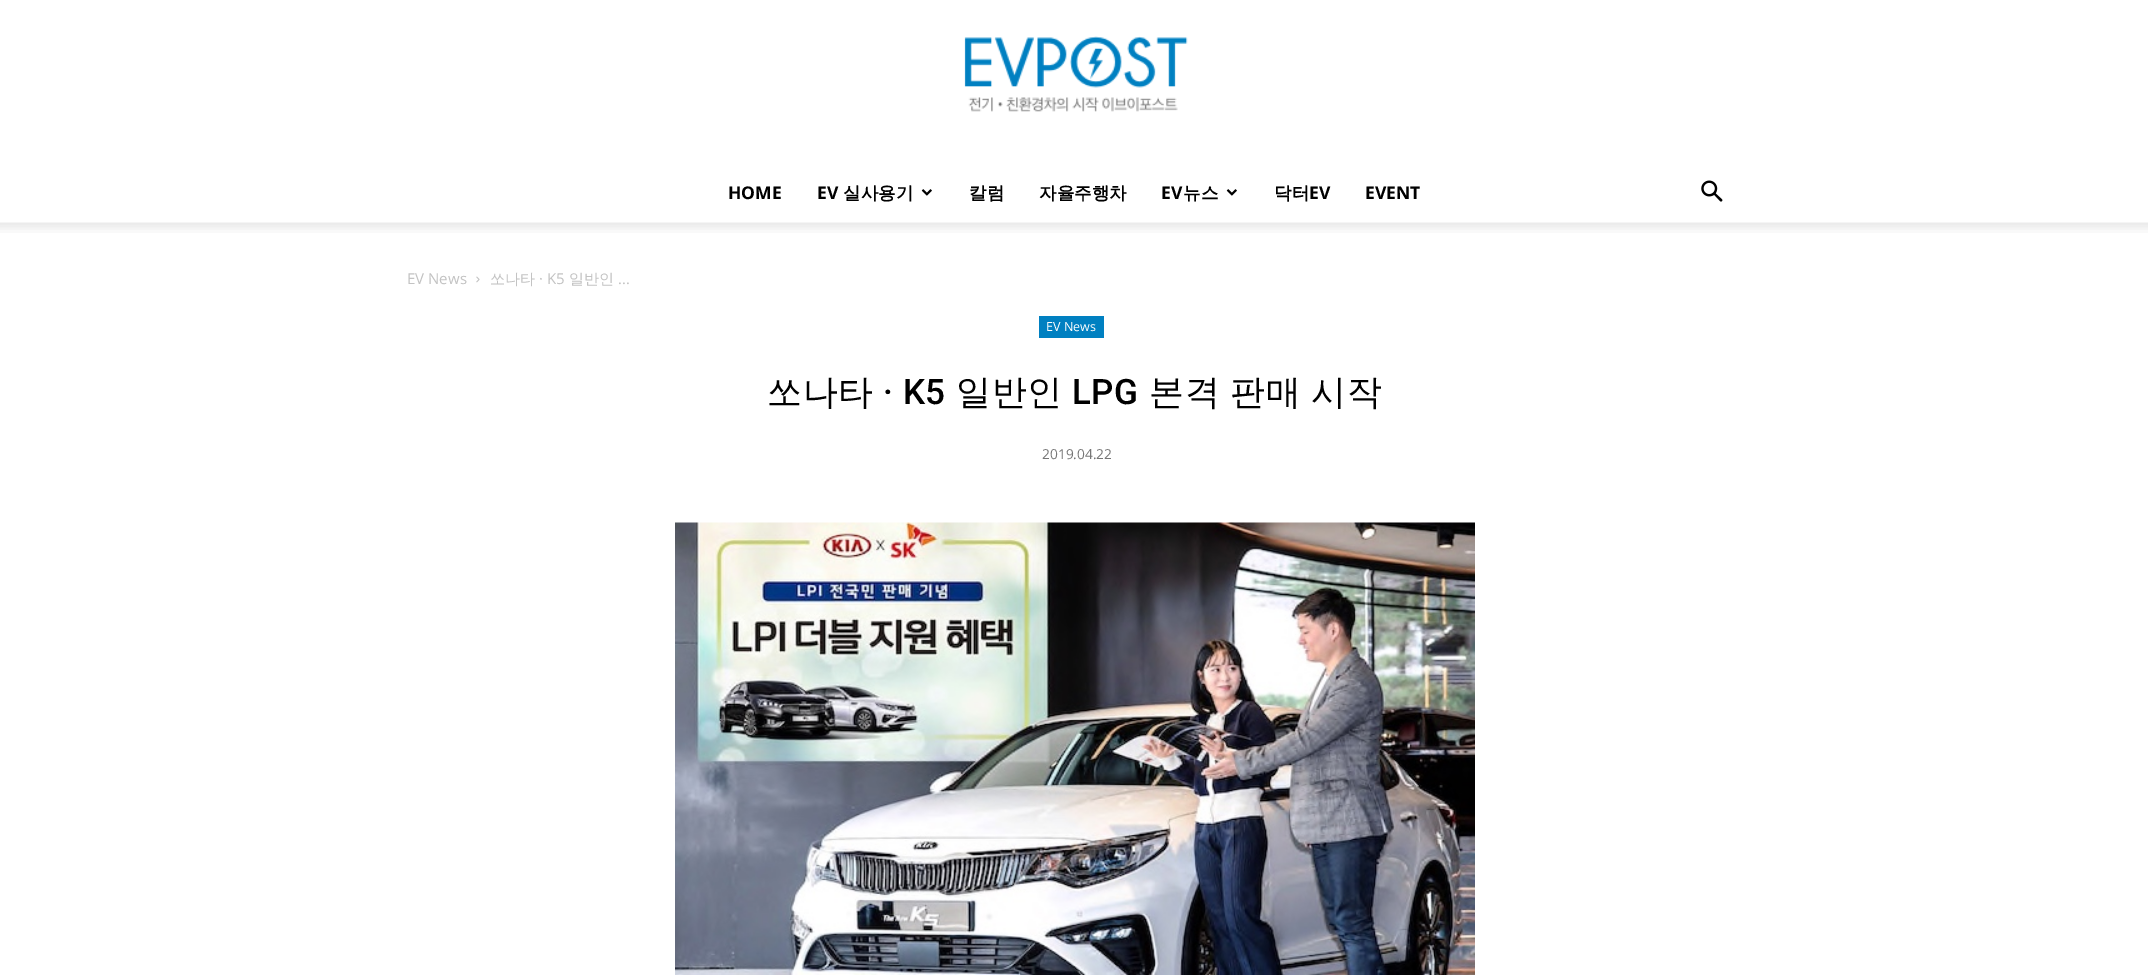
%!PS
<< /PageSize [2148 975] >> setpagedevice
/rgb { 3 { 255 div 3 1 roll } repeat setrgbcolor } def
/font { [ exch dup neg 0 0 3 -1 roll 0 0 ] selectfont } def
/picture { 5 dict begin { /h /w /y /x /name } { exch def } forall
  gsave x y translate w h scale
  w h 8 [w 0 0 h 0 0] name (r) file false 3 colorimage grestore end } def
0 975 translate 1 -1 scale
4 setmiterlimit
255 255 255 rgb
0 0 2148 975 rectfill
(img/1.rgb) 964 36 224 76 picture
(img/2.rgb) 921 189 11 7 picture
(img/2.rgb) 1226 189 11 7 picture
(img/3.rgb) 1701 180 22 22 picture
(img/4.rgb) 0 222 2148 11 picture
(img/5.rgb) 476 276 4 7 picture
0 128 193 rgb
1039 316 65 22 rectfill
(img/6.rgb) 675 522 800 453 picture
/OpenSans-Bold 17.5 font
0 0 0 rgb
728 199 moveto (HOME) show
817 199 moveto (EV) show
/WenQuanYiZenHei-Bold 17.5 font
[
  [(실사용기) 843 199]
  [(칼럼) 969 199]
  [(자율주행차) 1039 199]
] { aload pop moveto show } forall
/OpenSans-Bold 17.5 font
1161 199 moveto (EV) show
/WenQuanYiZenHei-Bold 17.5 font
1183 199 moveto (뉴스) show
1274 199 moveto (닥터) show
/OpenSans-Bold 17.5 font
1309 199 moveto (EV) show
1365 199 moveto (EVENT) show
/OpenSans-Regular 15 font
195 195 195 rgb
407 284 moveto (EV News) show
/WenQuanYiZenHei-Medium 15 font
490 284 moveto (쏘나타) show
/OpenSans-Regular 15 font
539 284 moveto (· K5) show
/WenQuanYiZenHei-Medium 15 font
569 284 moveto (일반인) show
/OpenSans-Regular 15 font
618 284 moveto (...) show
/OpenSans-Regular 12.5 font
255 255 255 rgb
1046 331 moveto (EV News) show
/WenQuanYiZenHei-Medium 35 font
0 0 0 rgb
767 404 moveto 0.5 0 (쏘나타) ashow
/Roboto-Medium 35 font
883 404 moveto 0.5 0 (· K5) ashow
/WenQuanYiZenHei-Medium 35 font
956 404 moveto 0.5 0 (일반인) ashow
/Roboto-Medium 35 font
1072 404 moveto 0.5 0 (LPG) ashow
/WenQuanYiZenHei-Medium 35 font
1149 404 moveto 0.5 0 (본격) ashow
1230 404 moveto 0.5 0 (판매) ashow
1311 404 moveto 0.5 0 (시작) ashow
/OpenSans-Regular 13.75 font
118 118 118 rgb
1042 459 moveto (2019.04.22) show
showpage
